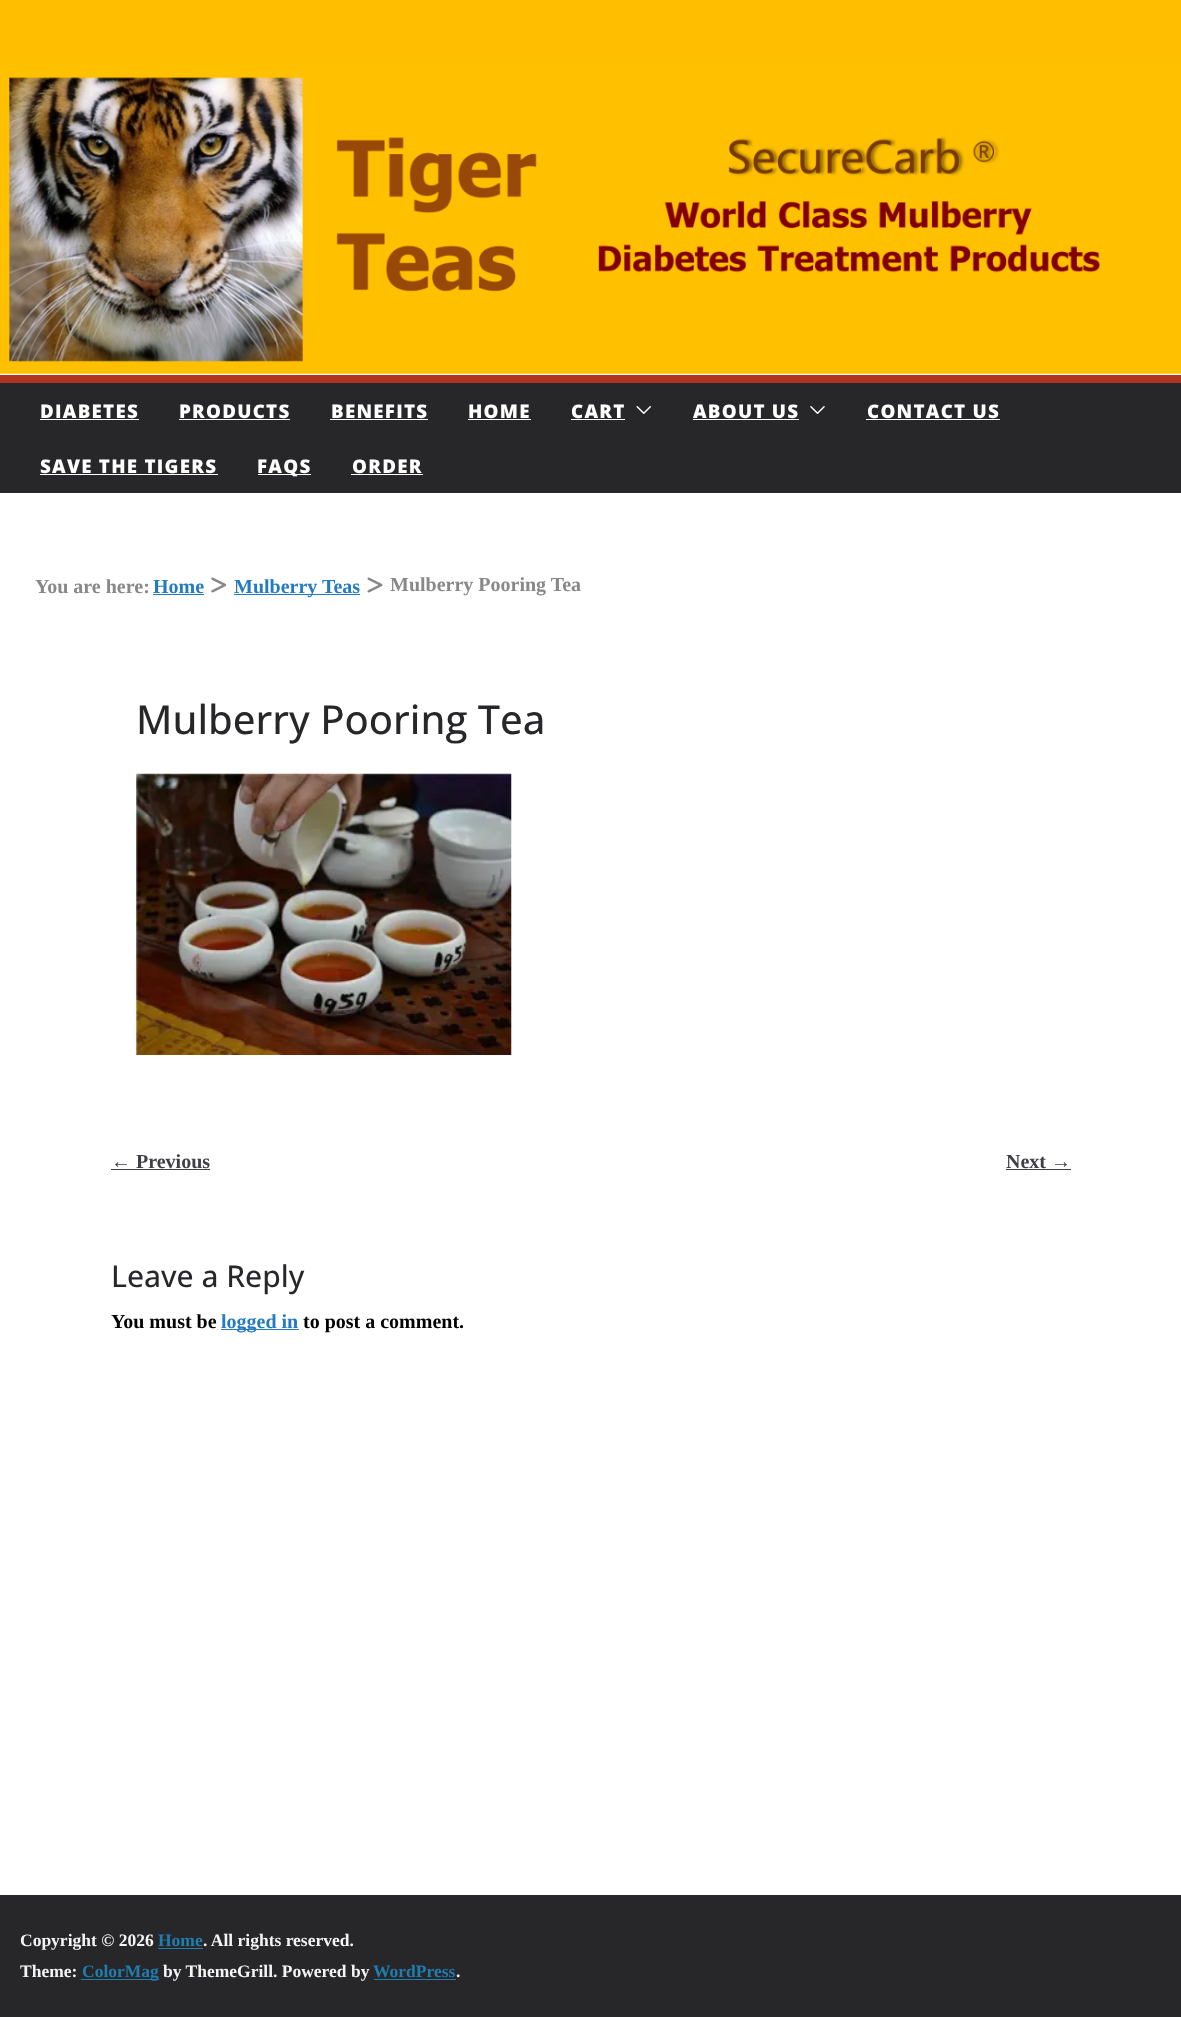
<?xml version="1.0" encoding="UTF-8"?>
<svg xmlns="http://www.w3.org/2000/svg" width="1181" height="2017">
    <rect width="100%" height="100%" fill="#FFFFFF"/>
    <rect x="0" y="0" width="1181" height="60" fill="#FFBF00"/>
    <image x="0" y="60" width="1181" height="314" href="img_01.png"/>
    <rect x="0" y="383" width="1181" height="110" fill="#27272A"/>
    <rect x="0" y="375" width="1181" height="8" fill="#B03420"/>
    <text x="40" y="418" font-family="Open Sans" font-size="18.75" font-weight="800" letter-spacing="1.25" fill="#FFFFFF">DIABETES</text>
    <rect x="40" y="419" width="99" height="1" fill="#FFFFFF"/>
    <text x="179" y="418" font-family="Open Sans" font-size="18.75" font-weight="800" letter-spacing="1.25" fill="#FFFFFF">PRODUCTS</text>
    <rect x="179" y="419" width="111" height="1" fill="#FFFFFF"/>
    <text x="331" y="418" font-family="Open Sans" font-size="18.75" font-weight="800" letter-spacing="1.25" fill="#FFFFFF">BENEFITS</text>
    <rect x="330" y="419" width="98" height="1" fill="#FFFFFF"/>
    <text x="468" y="418" font-family="Open Sans" font-size="18.75" font-weight="800" letter-spacing="1.25" fill="#FFFFFF">HOME</text>
    <rect x="468" y="419" width="63" height="1" fill="#FFFFFF"/>
    <text x="571" y="418" font-family="Open Sans" font-size="18.75" font-weight="800" letter-spacing="1.25" fill="#FFFFFF">CART</text>
    <rect x="571" y="419" width="54" height="1" fill="#FFFFFF"/>
    <image x="636" y="406" width="15" height="8" href="img_02.png"/>
    <text x="693" y="418" font-family="Open Sans" font-size="18.75" font-weight="800" letter-spacing="1.25" fill="#FFFFFF">ABOUT US</text>
    <rect x="693" y="419" width="106" height="1" fill="#FFFFFF"/>
    <image x="810" y="406" width="15" height="8" href="img_03.png"/>
    <text x="867" y="418" font-family="Open Sans" font-size="18.75" font-weight="800" letter-spacing="1.25" fill="#FFFFFF">CONTACT US</text>
    <rect x="866" y="419" width="134" height="1" fill="#FFFFFF"/>
    <text x="40" y="473" font-family="Open Sans" font-size="18.75" font-weight="800" letter-spacing="1.25" fill="#FFFFFF">SAVE THE TIGERS</text>
    <rect x="40" y="474" width="178" height="1" fill="#FFFFFF"/>
    <rect x="258" y="474" width="53" height="1" fill="#FFFFFF"/>
    <text x="257" y="473" font-family="Open Sans" font-size="18.75" font-weight="800" letter-spacing="1.25" fill="#FFFFFF">FAQS</text>
    <text x="352" y="473" font-family="Open Sans" font-size="18.75" font-weight="800" letter-spacing="1.25" fill="#FFFFFF">ORDER</text>
    <rect x="351" y="474" width="72" height="1" fill="#FFFFFF"/>
    <text x="35" y="593" font-family="Liberation Serif" font-size="20" font-weight="700" fill="#888888">You are here:</text>
    <text x="153" y="593" font-family="Liberation Serif" font-size="20" font-weight="700" fill="#257BC1">Home</text>
    <rect x="153" y="594" width="51" height="1" fill="#257BC1"/>
    <image x="211" y="577" width="16" height="16" href="img_04.png"/>
    <rect x="234" y="594" width="126" height="1" fill="#257BC1"/>
    <text x="234" y="593" font-family="Liberation Serif" font-size="20" font-weight="700" fill="#257BC1">Mulberry Teas</text>
    <image x="367" y="577" width="16" height="16" href="img_05.png"/>
    <text x="390" y="591" font-family="Liberation Serif" font-size="20" font-weight="700" fill="#888888">Mulberry Pooring Tea</text>
    <text x="136" y="734" font-family="Open Sans" font-size="40" font-weight="500" fill="#27272A">Mulberry Pooring Tea</text>
    <image x="136" y="773" width="376" height="282" href="img_06.png"/>
    <text x="111" y="1168" font-family="Liberation Serif" font-size="20" font-weight="700" fill="#3F3F46">← Previous</text>
    <rect x="111" y="1169" width="99" height="1" fill="#3F3F46"/>
    <text x="1006" y="1168" font-family="Liberation Serif" font-size="20" font-weight="700" fill="#3F3F46">Next →</text>
    <rect x="1006" y="1169" width="65" height="1" fill="#3F3F46"/>
    <text x="111" y="1287" font-family="Open Sans" font-size="30" font-weight="500" fill="#27272A">Leave a Reply</text>
    <text x="111" y="1328" font-family="Liberation Serif" font-size="20" font-weight="700" fill="#000000">You must be</text>
    <rect x="221" y="1329" width="78" height="1" fill="#257BC1"/>
    <text x="221" y="1328" font-family="Liberation Serif" font-size="20" font-weight="700" fill="#257BC1">logged in</text>
    <text x="303" y="1328" font-family="Liberation Serif" font-size="20" font-weight="700" fill="#000000">to post a comment.</text>
    <rect x="0" y="1895" width="1181" height="122" fill="#27272A"/>
    <text x="20" y="1946" font-family="Liberation Serif" font-size="17.5" font-weight="700" fill="#F4F4F5">Copyright © 2026</text>
    <text x="158" y="1946" font-family="Liberation Serif" font-size="17.5" font-weight="700" fill="#207DAF">Home</text>
    <rect x="158" y="1948" width="45" height="1" fill="#207DAF"/>
    <text x="203" y="1946" font-family="Liberation Serif" font-size="17.5" font-weight="700" fill="#F4F4F5">. All rights reserved.</text>
    <text x="20" y="1977" font-family="Liberation Serif" font-size="17.5" font-weight="700" fill="#F4F4F5">Theme:</text>
    <rect x="81" y="1979" width="78" height="1" fill="#207DAF"/>
    <text x="82" y="1977" font-family="Liberation Serif" font-size="17.5" font-weight="700" fill="#207DAF">ColorMag</text>
    <text x="163" y="1977" font-family="Liberation Serif" font-size="17.5" font-weight="700" fill="#F4F4F5">by ThemeGrill. Powered by</text>
    <text x="373" y="1977" font-family="Liberation Serif" font-size="17.5" font-weight="700" fill="#207DAF">WordPress</text>
    <rect x="374" y="1979" width="82" height="1" fill="#207DAF"/>
    <text x="456" y="1977" font-family="Liberation Serif" font-size="17.5" font-weight="700" fill="#F4F4F5">.</text>
</svg>
